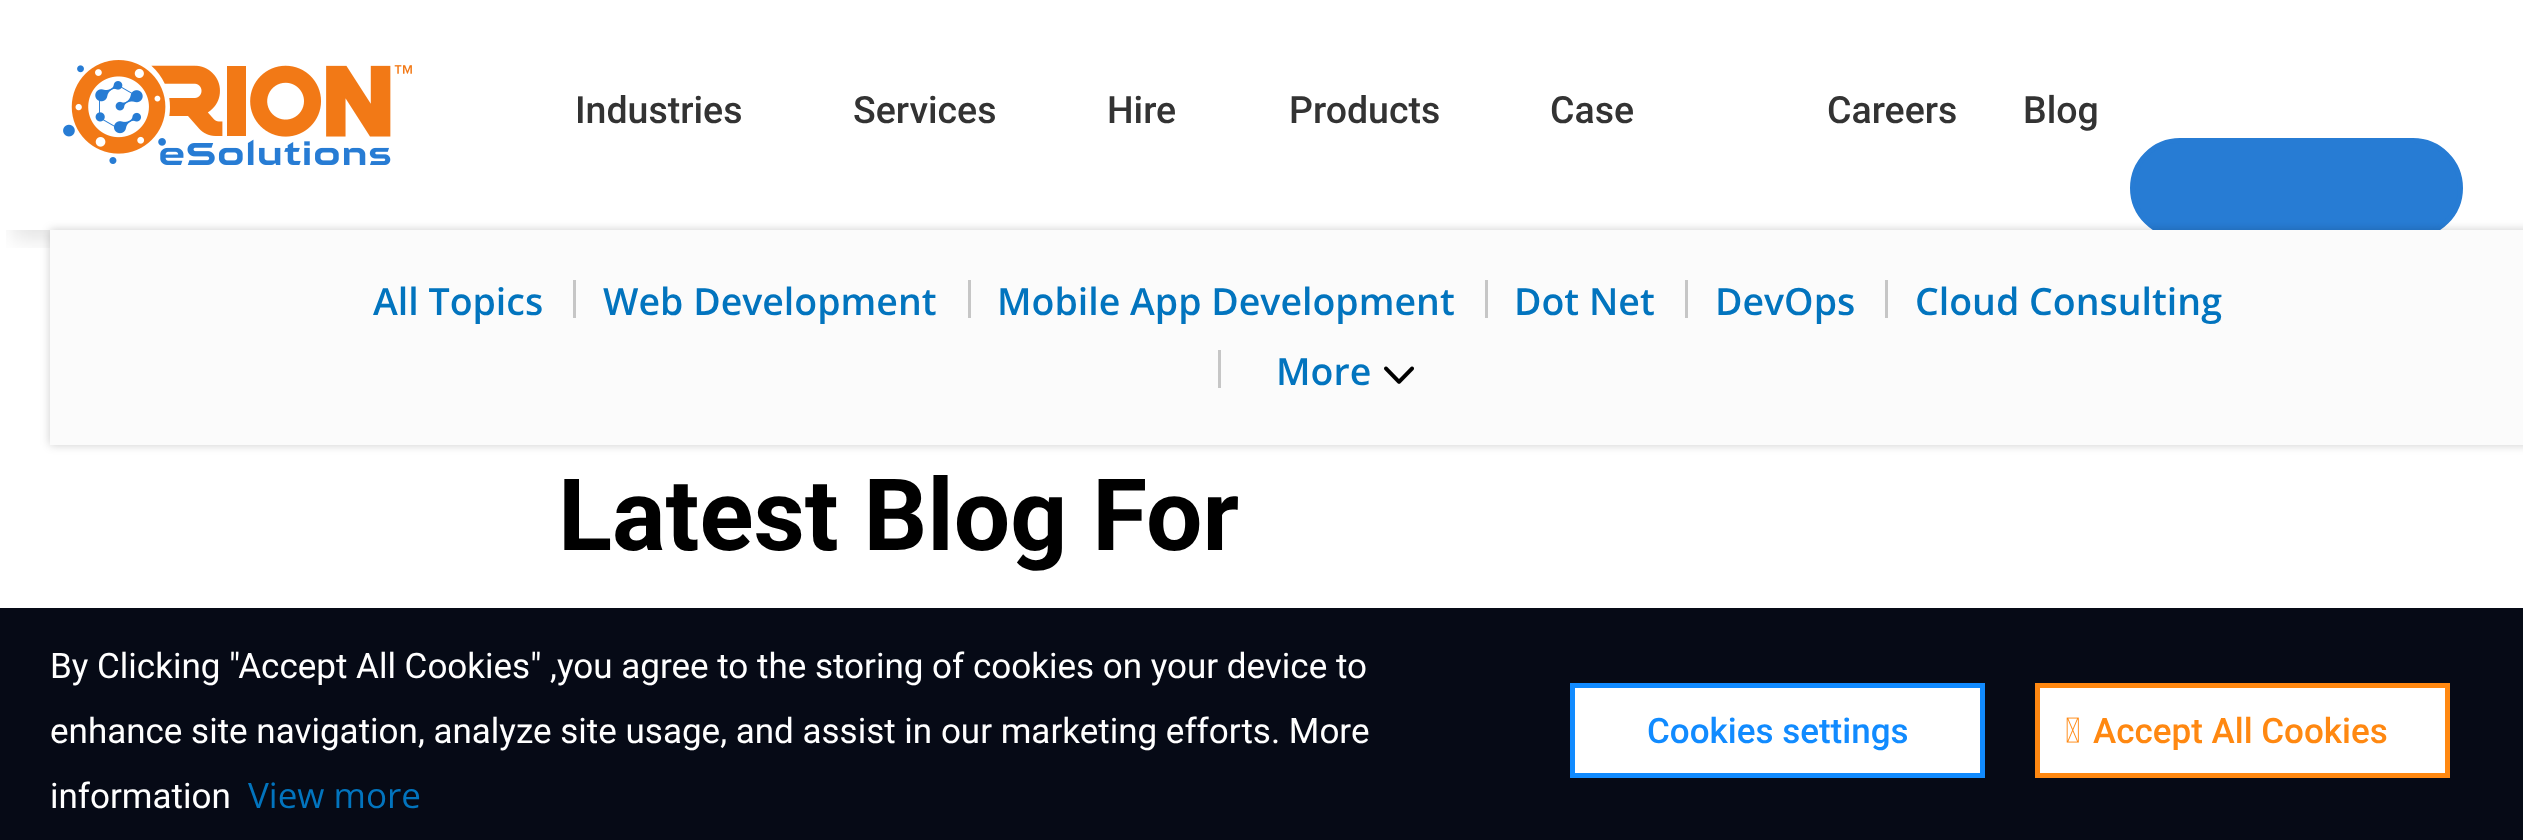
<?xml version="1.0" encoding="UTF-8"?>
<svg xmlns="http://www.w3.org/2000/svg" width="2523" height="840">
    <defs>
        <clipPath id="clip1"><rect x="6" y="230" width="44" height="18"/></clipPath>
        <filter id="blur1" x="-50%" y="-200%" width="200%" height="500%"><feGaussianBlur stdDeviation="10"/></filter>
        <filter id="blur2" x="-50%" y="-200%" width="200%" height="500%"><feGaussianBlur stdDeviation="5"/></filter>
    </defs>
    <rect width="100%" height="100%" fill="#FFFFFF"/>
    <g clip-path="url(#clip1)">
        <rect x="13" y="10" width="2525" height="230" fill="#000000" fill-opacity="0.1" filter="url(#blur1)"/>
    </g>
    <image x="63" y="60" width="349" height="105" href="img_01.png"/>
    <text x="575" y="123" font-family="Roboto" font-size="37.5" font-weight="500" fill="#333333">Industries</text>
    <text x="853" y="123" font-family="Roboto" font-size="37.5" font-weight="500" fill="#333333">Services</text>
    <text x="1107" y="123" font-family="Roboto" font-size="37.5" font-weight="500" fill="#333333">Hire</text>
    <text x="1289" y="123" font-family="Roboto" font-size="37.5" font-weight="500" fill="#333333">Products</text>
    <text x="1550" y="123" font-family="Roboto" font-size="37.5" font-weight="500" fill="#333333">Case</text>
    <text x="1827" y="123" font-family="Roboto" font-size="37.5" font-weight="500" fill="#333333">Careers</text>
    <text x="2023" y="123" font-family="Roboto" font-size="37.5" font-weight="500" fill="#333333">Blog</text>
    <rect x="2132.5" y="140.5" width="328" height="95" rx="47.5" fill="#277CD4" stroke="#277CD4" stroke-width="5"/>
    <rect x="50" y="230" width="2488" height="215" fill="#000000" fill-opacity="0.2" filter="url(#blur2)"/>
    <rect x="50" y="230" width="2473" height="215" fill="#FBFBFB"/>
    <text x="373" y="315" font-family="Open Sans" font-size="37.5" font-weight="600" fill="#0274BE">All Topics</text>
    <rect x="573" y="280" width="3" height="38" fill="#C6C6C6"/>
    <text x="603" y="315" font-family="Open Sans" font-size="37.5" font-weight="600" fill="#0274BE">Web Development</text>
    <rect x="968" y="280" width="3" height="38" fill="#C6C6C6"/>
    <text x="997" y="315" font-family="Open Sans" font-size="37.5" font-weight="600" fill="#0274BE">Mobile App Development</text>
    <rect x="1485" y="280" width="3" height="38" fill="#C6C6C6"/>
    <text x="1514" y="315" font-family="Open Sans" font-size="37.5" font-weight="600" fill="#0274BE">Dot Net</text>
    <rect x="1685" y="280" width="3" height="38" fill="#C6C6C6"/>
    <text x="1715" y="315" font-family="Open Sans" font-size="37.5" font-weight="600" fill="#0274BE">DevOps</text>
    <rect x="1885" y="280" width="3" height="38" fill="#C6C6C6"/>
    <text x="1915" y="315" font-family="Open Sans" font-size="37.5" font-weight="600" fill="#0274BE">Cloud Consulting</text>
    <rect x="1218" y="350" width="3" height="38" fill="#C6C6C6"/>
    <text x="1276" y="385" font-family="Open Sans" font-size="37.5" font-weight="600" fill="#0274BE">More</text>
    <image x="1384" y="366" width="30" height="18" href="img_02.png"/>
    <text x="558" y="550" font-family="Roboto" font-size="100" font-weight="700" fill="#000000">Latest Blog For</text>
    <rect x="0" y="608" width="2523" height="232" fill="#060A16"/>
    <text font-family="Roboto" font-size="35" fill="#FFFFFF">
        <tspan x="50" y="678">By Clicking "Accept All Cookies" ,you agree to the storing of cookies on your device to</tspan>
        <tspan x="50" y="743">enhance site navigation, analyze site usage, and assist in our marketing efforts. More</tspan>
        <tspan x="50" y="808">information</tspan>
    </text>
    <text x="248" y="808" font-family="Open Sans" font-size="35" fill="#0274BE">View more</text>
    <rect x="1572.5" y="685.5" width="410" height="90" fill="#FFFFFF" stroke="#118BFF" stroke-width="5"/>
    <text x="1647" y="743" font-family="Roboto" font-size="35" font-weight="500" fill="#118BFF">Cookies settings</text>
    <rect x="2037.5" y="685.5" width="410" height="90" fill="#FFFFFF" stroke="#FF8811" stroke-width="5"/>
    <image x="2066" y="717" width="13" height="26" href="img_03.png"/>
    <text x="2093" y="743" font-family="Roboto" font-size="35" font-weight="500" fill="#FF8811">Accept All Cookies</text>
</svg>
